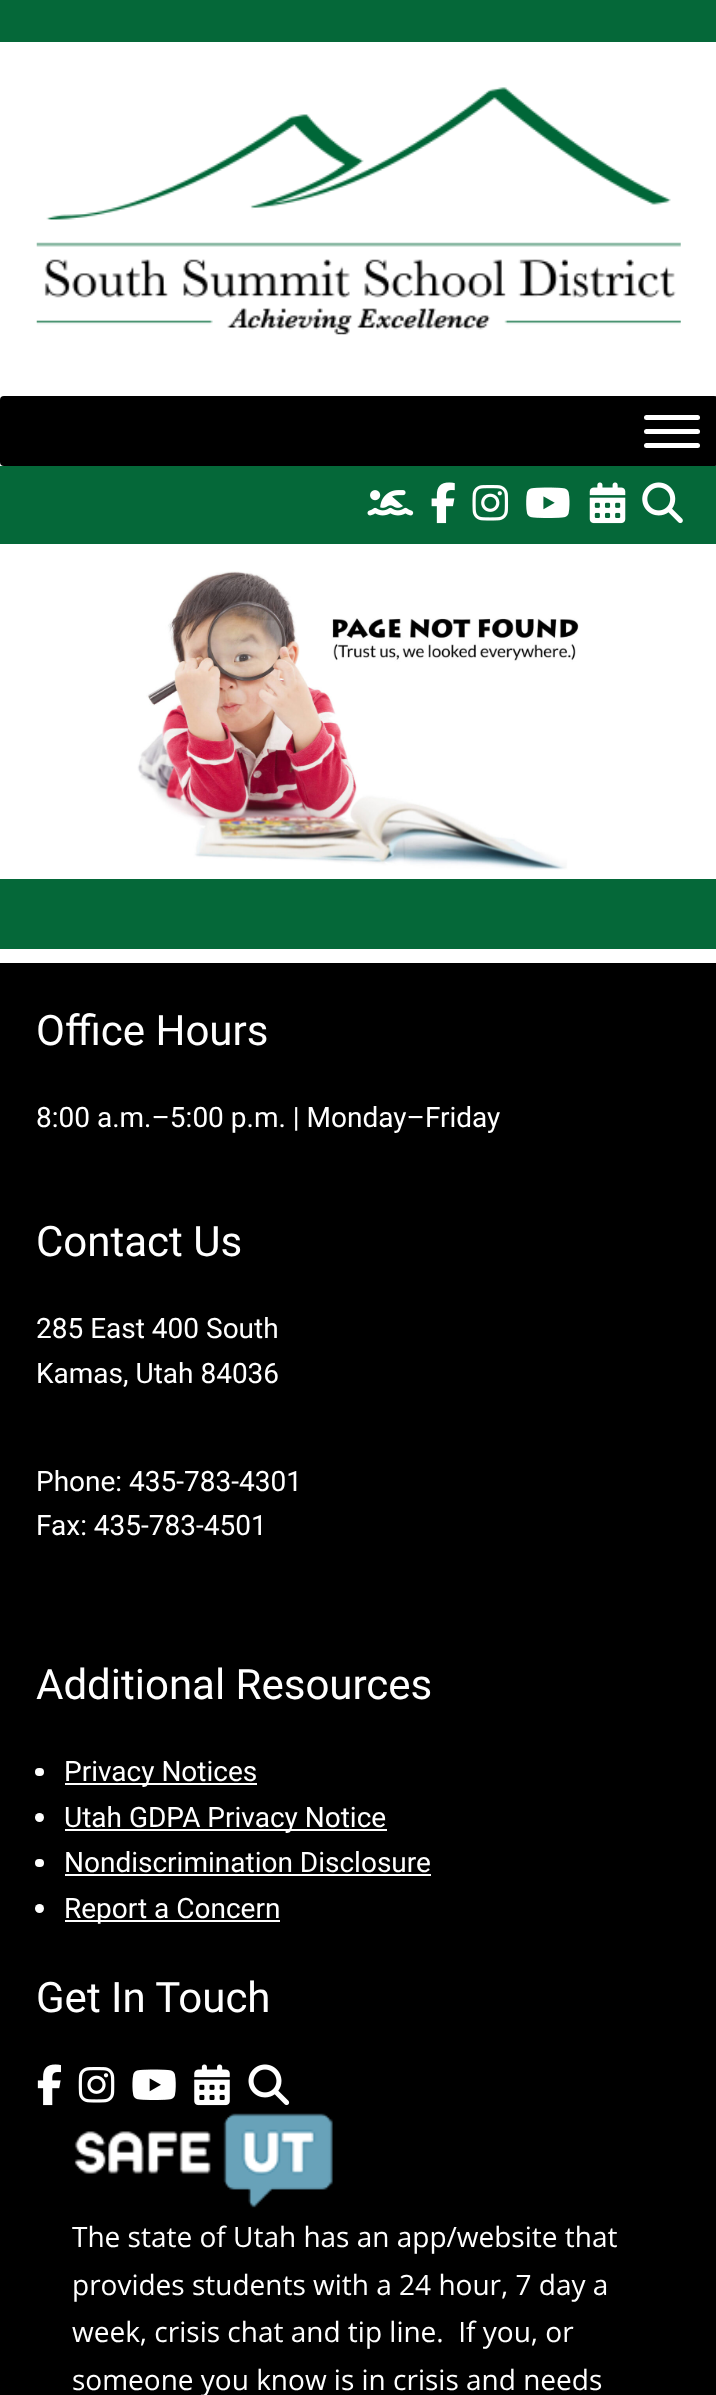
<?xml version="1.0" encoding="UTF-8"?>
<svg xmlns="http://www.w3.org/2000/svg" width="716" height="2395">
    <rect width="100%" height="100%" fill="#FFFFFF"/>
    <rect x="0" y="0" width="716" height="42" fill="#056839"/>
    <image x="36" y="87" width="645" height="248" href="img_01.png"/>
    <rect x="0" y="396" width="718" height="70" rx="4" fill="#000000"/>
    <rect x="644" y="415" width="56" height="5" rx="2.5" fill="#FFFFFF"/>
    <rect x="644" y="429" width="56" height="5" rx="2.5" fill="#FFFFFF"/>
    <rect x="644" y="443" width="56" height="5" rx="2.5" fill="#FFFFFF"/>
    <rect x="0" y="466" width="716" height="78" fill="#056839"/>
    <image x="367" y="490" width="47" height="26" href="img_02.png"/>
    <image x="431" y="482" width="24" height="42" href="img_03.png"/>
    <image x="472" y="485" width="37" height="36" href="img_04.png"/>
    <image x="526" y="487" width="44" height="31" href="img_05.png"/>
    <image x="589" y="482" width="37" height="42" href="img_06.png"/>
    <image x="642" y="482" width="41" height="42" href="img_07.png"/>
    <image x="137" y="571" width="442" height="299" href="img_08.png"/>
    <rect x="0" y="963" width="716" height="1432" fill="#000000"/>
    <rect x="0" y="879" width="716" height="70" fill="#056839"/>
    <text x="36" y="1045" font-family="Roboto" font-size="42" fill="#FFFFFF">Office Hours</text>
    <text x="36" y="1127" font-family="Roboto" font-size="28" fill="#FFFFFF">8:00 a.m.–5:00 p.m. | Monday–Friday</text>
    <text x="36" y="1256" font-family="Roboto" font-size="42" fill="#FFFFFF">Contact Us</text>
    <text font-family="Roboto" font-size="28" fill="#FFFFFF">
        <tspan x="36" y="1338">285 East 400 South</tspan>
        <tspan x="36" y="1383">Kamas, Utah 84036</tspan>
    </text>
    <text font-family="Roboto" font-size="28" fill="#FFFFFF">
        <tspan x="36" y="1491">Phone: 435-783-4301</tspan>
        <tspan x="36" y="1535">Fax: 435-783-4501</tspan>
    </text>
    <text x="36" y="1699" font-family="Roboto" font-size="42" fill="#FFFFFF">Additional Resources</text>
    <rect x="35" y="1768" width="9" height="8" rx="4" fill="#FFFFFF"/>
    <rect x="65" y="1783" width="192" height="2" fill="#FFFFFF"/>
    <text x="64" y="1781" font-family="Roboto" font-size="28" fill="#FFFFFF">Privacy Notices</text>
    <circle cx="39.5" cy="1817.5" r="4.5" fill="#FFFFFF"/>
    <rect x="65" y="1829" width="322" height="2" fill="#FFFFFF"/>
    <text x="64" y="1827" font-family="Roboto" font-size="28" fill="#FFFFFF">Utah GDPA Privacy Notice</text>
    <rect x="35" y="1859" width="9" height="8" rx="4" fill="#FFFFFF"/>
    <text x="64" y="1872" font-family="Roboto" font-size="28" fill="#FFFFFF">Nondiscrimination Disclosure</text>
    <rect x="65" y="1874" width="366" height="2" fill="#FFFFFF"/>
    <circle cx="39.5" cy="1908.5" r="4.5" fill="#FFFFFF"/>
    <rect x="65" y="1920" width="215" height="2" fill="#FFFFFF"/>
    <text x="64" y="1918" font-family="Roboto" font-size="28" fill="#FFFFFF">Report a Concern</text>
    <text x="36" y="2012" font-family="Roboto" font-size="42" fill="#FFFFFF">Get In Touch</text>
    <image x="37" y="2064" width="24" height="42" href="img_09.png"/>
    <image x="78" y="2067" width="37" height="36" href="img_10.png"/>
    <image x="132" y="2069" width="44" height="31" href="img_11.png"/>
    <image x="194" y="2064" width="36" height="42" href="img_12.png"/>
    <image x="248" y="2064" width="42" height="42" href="img_13.png"/>
    <image x="74" y="2113" width="259" height="95" href="img_14.png"/>
    <text font-family="Open Sans" font-size="28" fill="#FFFFFF" xml:space="preserve"><tspan x="72" y="2247">The state of Utah has an app/website that</tspan><tspan x="72" y="2295">provides students with a 24 hour, 7 day a</tspan><tspan x="72" y="2342">week, crisis chat and tip line.  If you, or</tspan><tspan x="72" y="2390">someone you know is in crisis and needs</tspan></text>
</svg>
